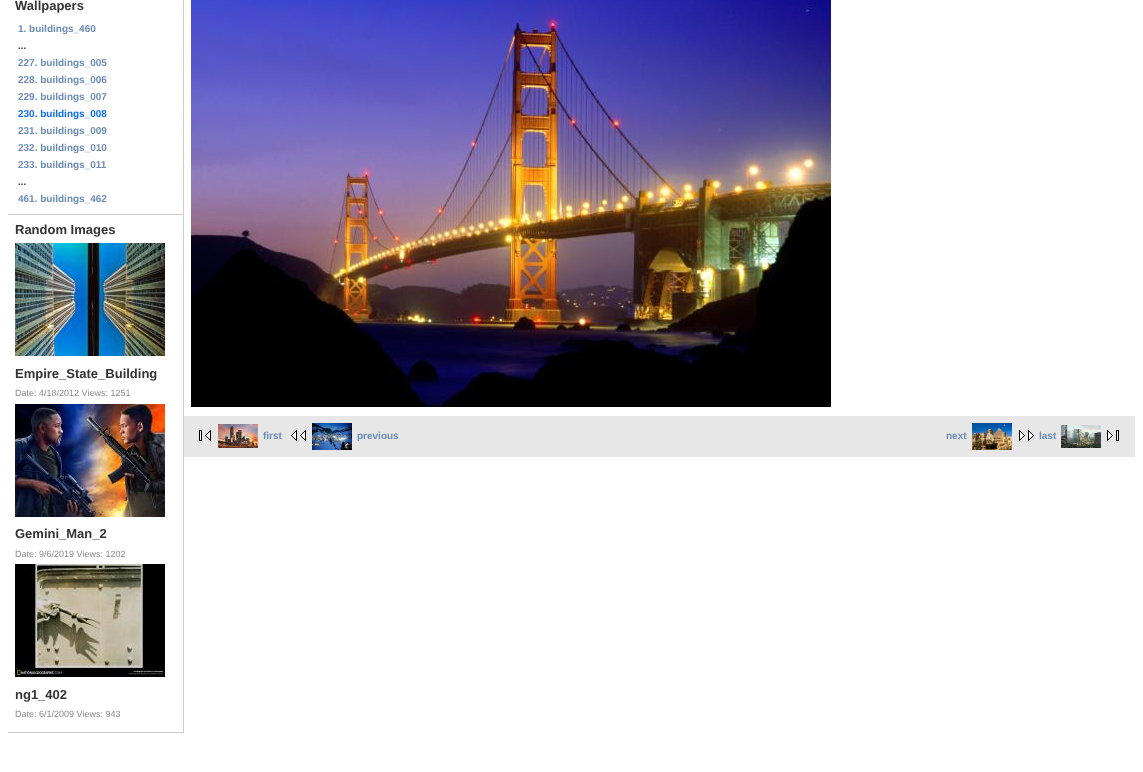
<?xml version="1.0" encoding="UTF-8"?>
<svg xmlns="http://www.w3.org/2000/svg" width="1143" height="772">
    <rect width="100%" height="100%" fill="#FFFFFF"/>
    <rect x="183" y="0" width="1" height="733" fill="#CCCCCC"/>
    <rect x="8" y="214" width="175" height="1" fill="#CCCCCC"/>
    <text x="15" y="10" font-family="Liberation Sans" font-size="13" font-weight="700" fill="#333333">Wallpapers</text>
    <text x="18" y="32" font-family="Liberation Sans" font-size="10" font-weight="700" fill="#6B8CB7">1. buildings_460</text>
    <text x="18" y="49" font-family="Liberation Sans" font-size="10" font-weight="700" fill="#333333">...</text>
    <text font-family="Liberation Sans" font-size="10" font-weight="700" fill="#6B8CB7">
        <tspan x="18" y="66">227. buildings_005</tspan>
        <tspan x="18" y="83">228. buildings_006</tspan>
        <tspan x="18" y="100">229. buildings_007</tspan>
    </text>
    <text x="18" y="117" font-family="Liberation Sans" font-size="10" font-weight="700" fill="#0B6CFF">230. buildings_008</text>
    <text font-family="Liberation Sans" font-size="10" font-weight="700" fill="#6B8CB7">
        <tspan x="18" y="134">231. buildings_009</tspan>
        <tspan x="18" y="151">232. buildings_010</tspan>
        <tspan x="18" y="168">233. buildings_011</tspan>
    </text>
    <text x="18" y="185" font-family="Liberation Sans" font-size="10" font-weight="700" fill="#333333">...</text>
    <text x="18" y="202" font-family="Liberation Sans" font-size="10" font-weight="700" fill="#6B8CB7">461. buildings_462</text>
    <rect x="8" y="732" width="175" height="1" fill="#CCCCCC"/>
    <text x="15" y="234" font-family="Liberation Sans" font-size="13" font-weight="700" fill="#333333">Random Images</text>
    <image x="15" y="243" width="150" height="113" href="img_01.png"/>
    <text x="15" y="378" font-family="Liberation Sans" font-size="13" font-weight="700" fill="#333333">Empire_State_Building</text>
    <text x="15" y="396" font-family="Liberation Sans" font-size="9" fill="#888888">Date: 4/18/2012 Views: 1251</text>
    <image x="15" y="404" width="150" height="113" href="img_02.png"/>
    <text x="15" y="538" font-family="Liberation Sans" font-size="13" font-weight="700" fill="#333333">Gemini_Man_2</text>
    <text x="15" y="557" font-family="Liberation Sans" font-size="9" fill="#888888">Date: 9/6/2019 Views: 1202</text>
    <image x="15" y="564" width="150" height="113" href="img_03.png"/>
    <text x="15" y="699" font-family="Liberation Sans" font-size="13" font-weight="700" fill="#333333">ng1_402</text>
    <text x="15" y="717" font-family="Liberation Sans" font-size="9" fill="#888888">Date: 6/1/2009 Views: 943</text>
    <image x="191" y="0" width="640" height="407" href="img_04.png"/>
    <rect x="184" y="416" width="951" height="41" fill="#E7E7E7"/>
    <image x="199" y="430" width="12" height="11" href="img_05.png"/>
    <image x="218" y="424" width="40" height="24" href="img_06.png"/>
    <text x="263" y="439" font-family="Liberation Sans" font-size="10" font-weight="700" fill="#6B8CB7">first</text>
    <image x="291" y="430" width="15" height="11" href="img_07.png"/>
    <image x="312" y="423" width="40" height="27" href="img_08.png"/>
    <text x="357" y="439" font-family="Liberation Sans" font-size="10" font-weight="700" fill="#6B8CB7">previous</text>
    <text x="946" y="439" font-family="Liberation Sans" font-size="10" font-weight="700" fill="#6B8CB7">next</text>
    <image x="972" y="423" width="40" height="27" href="img_09.png"/>
    <image x="1019" y="430" width="15" height="11" href="img_10.png"/>
    <text x="1039" y="439" font-family="Liberation Sans" font-size="10" font-weight="700" fill="#6B8CB7">last</text>
    <image x="1061" y="425" width="40" height="23" href="img_11.png"/>
    <image x="1107" y="430" width="12" height="11" href="img_12.png"/>
</svg>
